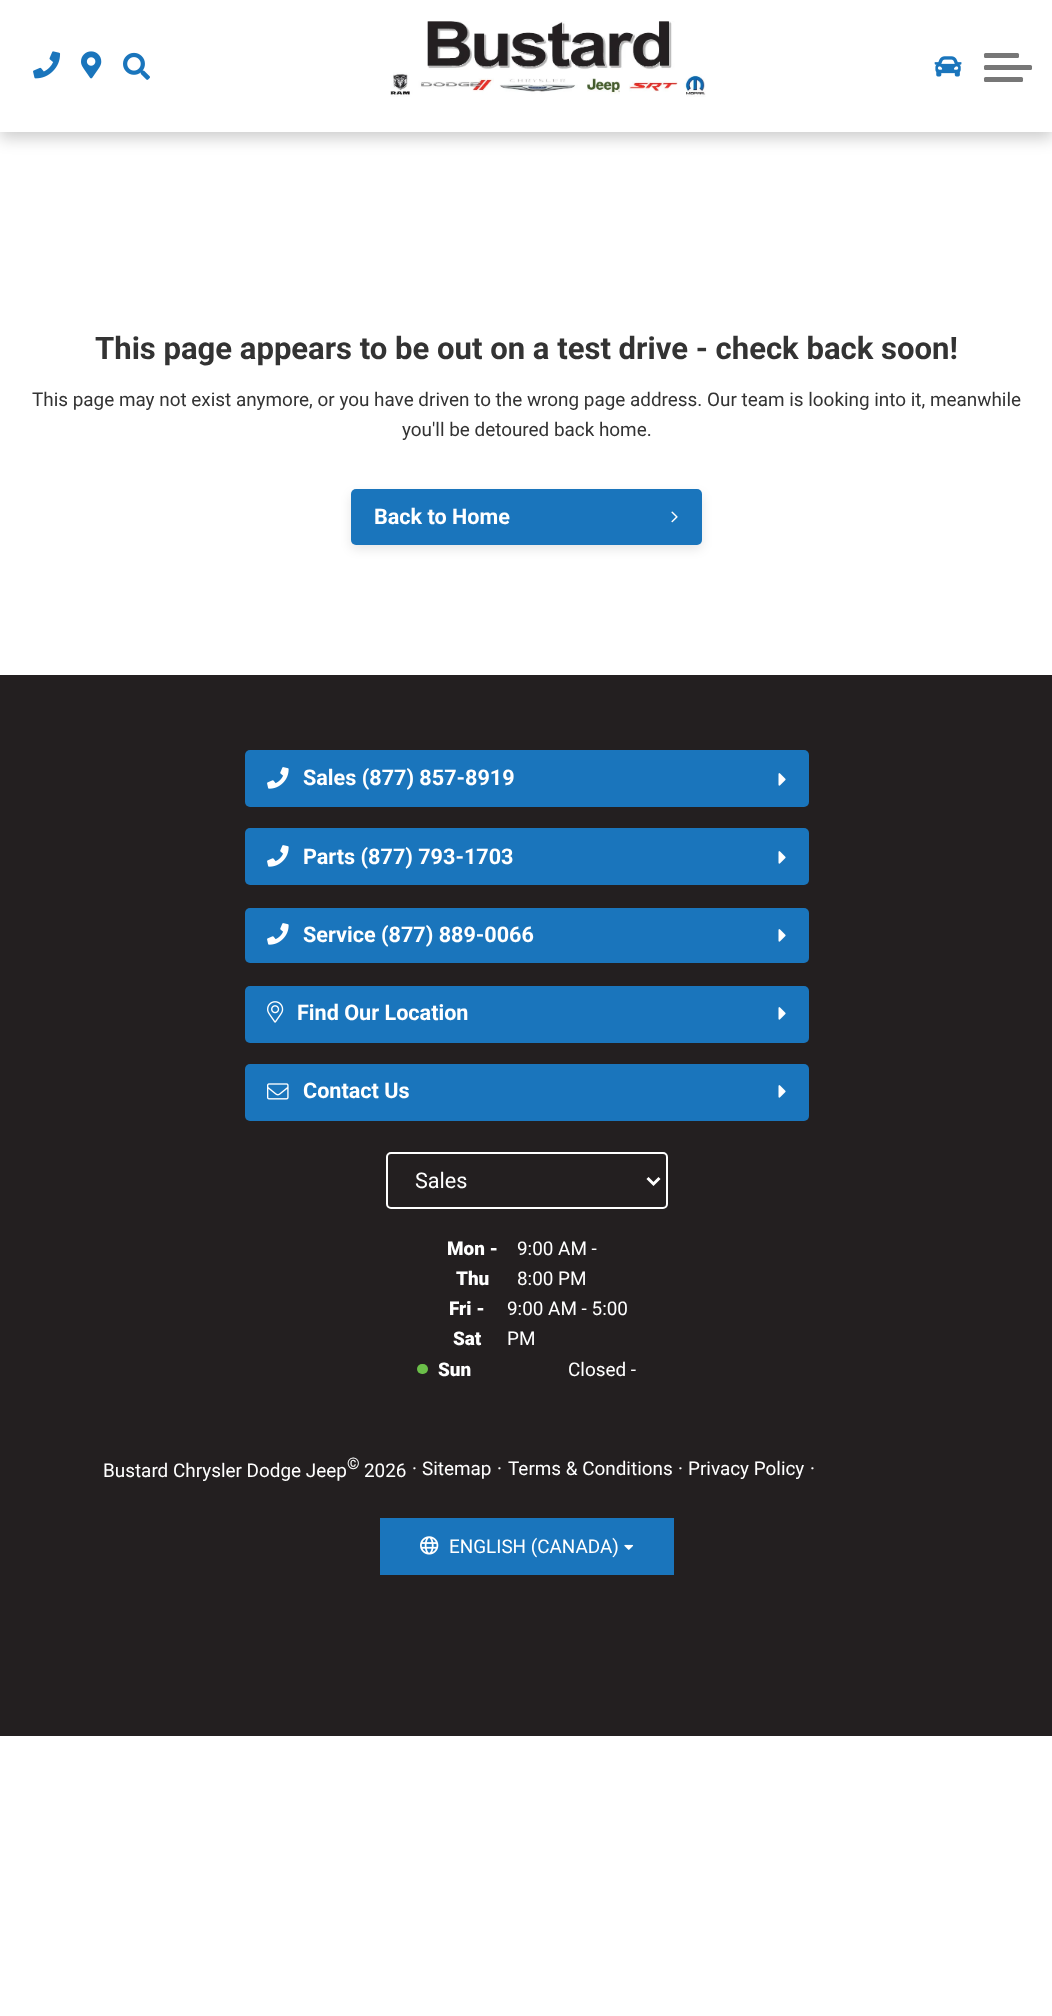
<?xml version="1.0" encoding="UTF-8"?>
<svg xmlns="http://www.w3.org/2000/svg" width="1052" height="2016">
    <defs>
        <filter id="blur1" x="-50%" y="-200%" width="200%" height="500%"><feGaussianBlur stdDeviation="8"/></filter>
        <filter id="blur2" x="-50%" y="-200%" width="200%" height="500%"><feGaussianBlur stdDeviation="5.5"/></filter>
    </defs>
    <rect width="100%" height="100%" fill="#FFFFFF"/>
    <rect x="0" y="6" width="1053" height="132" fill="#000000" fill-opacity="0.2" filter="url(#blur1)"/>
    <rect x="0" y="0" width="1052" height="132" fill="#FFFFFF"/>
    <image x="33" y="51" width="28" height="28" href="img_01.png"/>
    <image x="81" y="51" width="21" height="28" href="img_02.png"/>
    <image x="123" y="52" width="27" height="28" href="img_03.png"/>
    <image x="390" y="21" width="316" height="76" href="img_04.png"/>
    <image x="934" y="56" width="28" height="21" href="img_05.png"/>
    <rect x="984" y="65" width="48" height="5" rx="1.5" fill="#777777"/>
    <rect x="984" y="53" width="35" height="5" rx="1.5" fill="#777777"/>
    <rect x="984" y="77" width="39" height="5" rx="1.5" fill="#777777"/>
    <text x="95" y="359" font-family="Roboto" font-size="31.05" font-weight="700" fill="#333333">This page appears to be out on a test drive - check back soon!</text>
    <text x="32" y="406" font-family="Roboto" font-size="18.9" fill="#333333">This page may not exist anymore, or you have driven to the wrong page address. Our team is looking into it, meanwhile</text>
    <text x="402" y="436" font-family="Roboto" font-size="18.9" fill="#333333">you'll be detoured back home.</text>
    <rect x="351" y="494" width="351" height="55" rx="5" fill="#000000" fill-opacity="0.1" filter="url(#blur2)"/>
    <rect x="351" y="489" width="351" height="56" rx="5" fill="#1A75BC"/>
    <text x="374" y="524" font-family="Roboto" font-size="21.6" font-weight="700" fill="#FFFFFF">Back to Home</text>
    <image x="671" y="511" width="7" height="12" href="img_06.png"/>
    <rect x="0" y="675" width="1052" height="1061" fill="#231F20"/>
    <rect x="245" y="750" width="564" height="57" rx="5" fill="#1A75BC"/>
    <image x="267" y="767" width="22" height="22" href="img_07.png"/>
    <text x="303" y="785" font-family="Roboto" font-size="21.6" font-weight="700" fill="#FFFFFF">Sales (877) 857-8919</text>
    <image x="778" y="773" width="8" height="13" href="img_08.png"/>
    <rect x="245" y="828" width="564" height="57" rx="5" fill="#1A75BC"/>
    <image x="267" y="845" width="22" height="22" href="img_07.png"/>
    <text x="303" y="864" font-family="Roboto" font-size="21.6" font-weight="700" fill="#FFFFFF">Parts (877) 793-1703</text>
    <image x="778" y="851" width="8" height="13" href="img_08.png"/>
    <rect x="245" y="908" width="564" height="55" rx="5" fill="#1A75BC"/>
    <image x="267" y="923" width="22" height="22" href="img_07.png"/>
    <text x="303" y="942" font-family="Roboto" font-size="21.6" font-weight="700" fill="#FFFFFF">Service (877) 889-0066</text>
    <image x="778" y="929" width="8" height="13" href="img_08.png"/>
    <rect x="245" y="986" width="564" height="57" rx="5" fill="#1A75BC"/>
    <image x="267" y="1001" width="17" height="22" href="img_09.png"/>
    <text x="297" y="1020" font-family="Roboto" font-size="21.6" font-weight="700" fill="#FFFFFF">Find Our Location</text>
    <image x="778" y="1007" width="8" height="13" href="img_08.png"/>
    <rect x="245" y="1064" width="564" height="57" rx="5" fill="#1A75BC"/>
    <image x="267" y="1083" width="22" height="17" href="img_10.png"/>
    <text x="303" y="1098" font-family="Roboto" font-size="21.6" font-weight="700" fill="#FFFFFF">Contact Us</text>
    <image x="778" y="1085" width="8" height="13" href="img_08.png"/>
    <rect x="387" y="1153" width="280" height="55" rx="4" fill="none" stroke="#FFFFFF" stroke-width="2"/>
    <path d="M 647.5 1178 L 653.5 1184 L 659.5 1178" fill="none" stroke="#FFFFFF" stroke-width="3"/>
    <text x="415" y="1188" font-family="Roboto" font-size="21.6" fill="#FFFFFF">Sales</text>
    <text x="447" y="1255" font-family="Roboto" font-size="18.9" font-weight="900" fill="#FFFFFF">Mon -</text>
    <text x="456" y="1285" font-family="Roboto" font-size="18.9" font-weight="900" fill="#FFFFFF">Thu</text>
    <text font-family="Roboto" font-size="18.9" fill="#FFFFFF">
        <tspan x="517" y="1255">9:00 AM -</tspan>
        <tspan x="517" y="1285">8:00 PM</tspan>
    </text>
    <text x="449" y="1315" font-family="Roboto" font-size="18.9" font-weight="900" fill="#FFFFFF">Fri -</text>
    <text x="453" y="1345" font-family="Roboto" font-size="18.9" font-weight="900" fill="#FFFFFF">Sat</text>
    <text font-family="Roboto" font-size="18.9" fill="#FFFFFF">
        <tspan x="507" y="1315">9:00 AM - 5:00</tspan>
        <tspan x="507" y="1345">PM</tspan>
    </text>
    <rect x="417" y="1364" width="11" height="10" rx="5" fill="#6BBF49"/>
    <text x="438" y="1376" font-family="Roboto" font-size="18.9" font-weight="900" fill="#FFFFFF">Sun</text>
    <text x="568" y="1376" font-family="Roboto" font-size="18.9" fill="#FFFFFF">Closed -</text>
    <text x="103" y="1477" font-family="Roboto" font-size="18.9" fill="#FFFFFF">Bustard Chrysler Dodge Jeep</text>
    <text x="347" y="1469" font-family="Roboto" font-size="16" fill="#FFFFFF">©</text>
    <text x="364" y="1477" font-family="Roboto" font-size="18.9" fill="#FFFFFF">2026</text>
    <text x="412" y="1475" font-family="Roboto" font-size="18.9" fill="#FFFFFF">·</text>
    <text x="422" y="1475" font-family="Roboto" font-size="18.9" fill="#FFFFFF">Sitemap</text>
    <text x="497" y="1475" font-family="Roboto" font-size="18.9" fill="#FFFFFF">·</text>
    <text x="508" y="1475" font-family="Roboto" font-size="18.9" fill="#FFFFFF">Terms &amp; Conditions</text>
    <text x="678" y="1475" font-family="Roboto" font-size="18.9" fill="#FFFFFF">·</text>
    <text x="688" y="1475" font-family="Roboto" font-size="18.9" fill="#FFFFFF">Privacy Policy</text>
    <text x="810" y="1475" font-family="Roboto" font-size="18.9" fill="#FFFFFF">·</text>
    <rect x="380" y="1518" width="294" height="57" fill="#1A75BC"/>
    <image x="420" y="1536" width="19" height="19" href="img_11.png"/>
    <text x="449" y="1553" font-family="Roboto" font-size="18.9" fill="#FFFFFF">ENGLISH (CANADA)</text>
    <image x="624" y="1544" width="10" height="6" href="img_12.png"/>
</svg>
